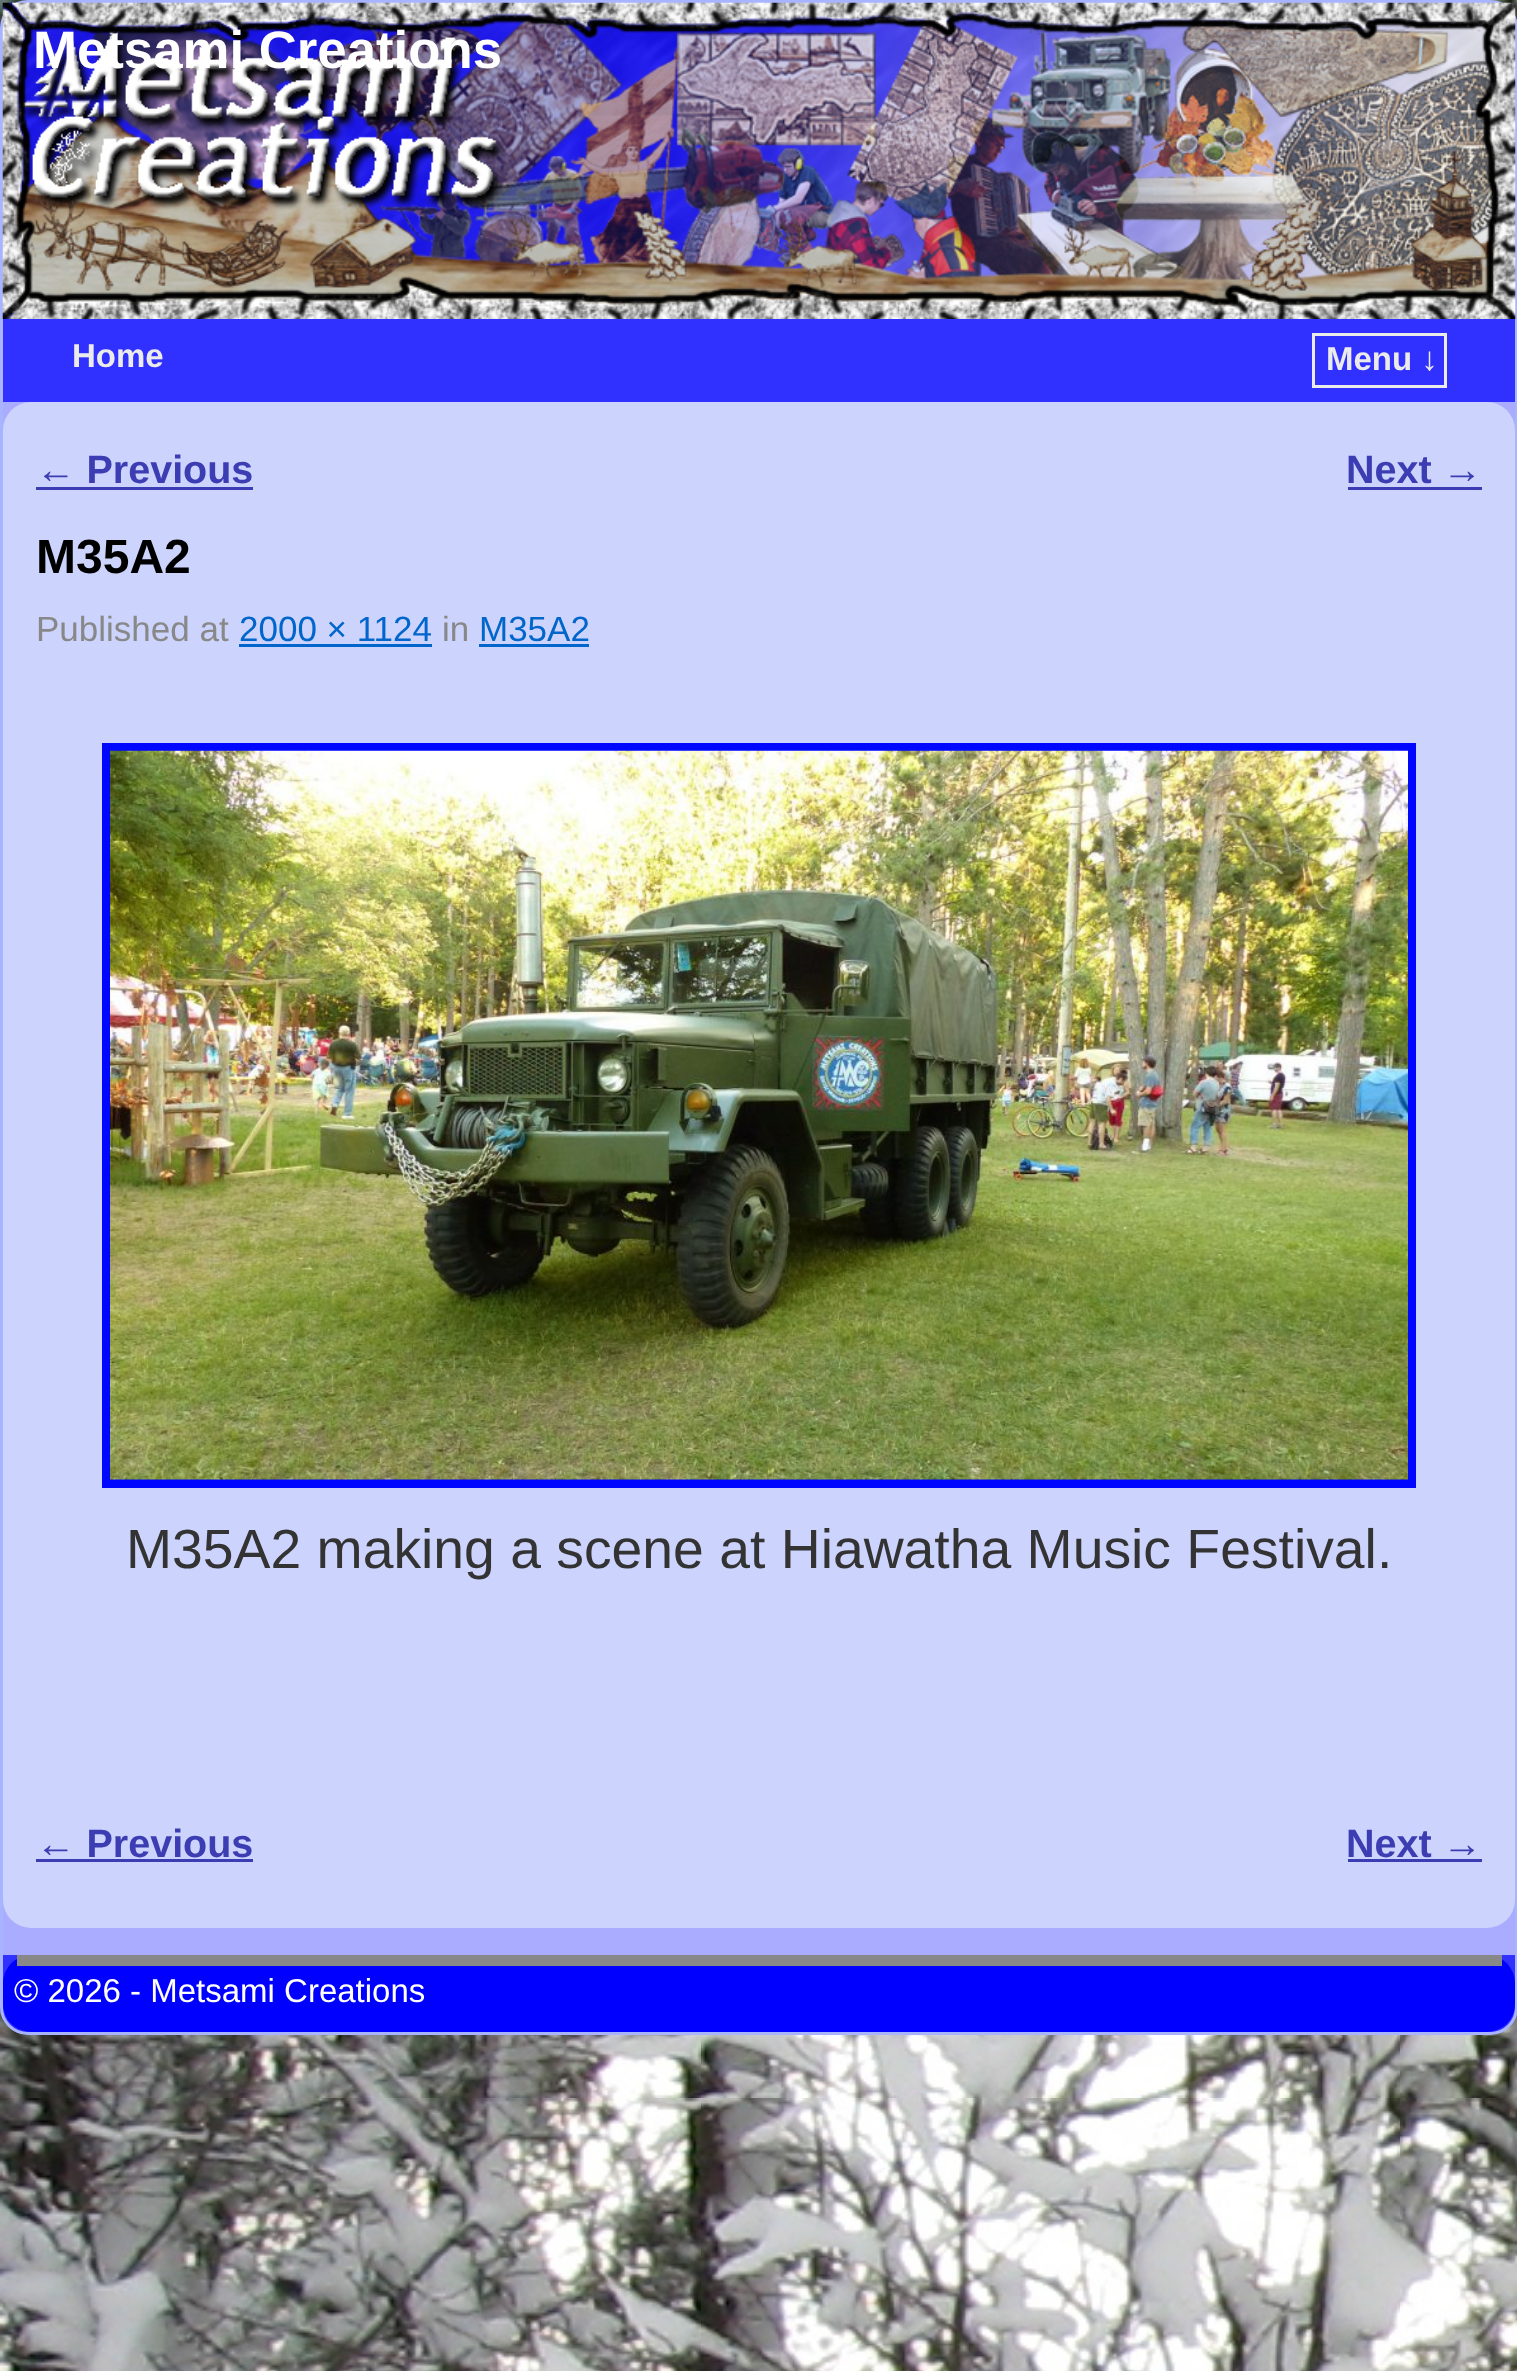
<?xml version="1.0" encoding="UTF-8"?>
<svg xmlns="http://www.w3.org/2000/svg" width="1517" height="2371">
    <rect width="100%" height="100%" fill="#FFFFFF"/>
    <image x="0" y="0" width="1517" height="2371" href="img_01.png"/>
    <rect x="1.5" y="1.5" width="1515" height="2032" rx="26.5" fill="#3030FF" stroke="#A8B4FF" stroke-width="3"/>
    <image x="2" y="2" width="1514" height="317" href="img_02.png"/>
    <text x="33" y="68" font-family="Liberation Sans" font-size="52.75" font-weight="700" fill="#FFFFFF">Metsami Creations</text>
    <text x="72" y="367" font-family="Liberation Sans" font-size="33" font-weight="700" fill="#EBEBEB">Home</text>
    <rect x="1313.5" y="334.5" width="132" height="52" fill="none" stroke="#EBEBEB" stroke-width="3"/>
    <text x="1326" y="370" font-family="Liberation Sans" font-size="33" font-weight="700" fill="#EBEBEB">Menu ↓</text>
    <rect x="3" y="402" width="1512" height="1553" fill="#AAADFF"/>
    <rect x="3" y="402" width="1512" height="1526" rx="28" fill="#CCD3FC"/>
    <text x="36" y="483" font-family="Liberation Sans" font-size="39.5" font-weight="700" fill="#3C3CB3">← Previous</text>
    <rect x="36" y="487" width="217" height="3" fill="#3C3CB3"/>
    <text x="1346" y="483" font-family="Liberation Sans" font-size="39.5" font-weight="700" fill="#3C3CB3">Next →</text>
    <rect x="1348" y="487" width="134" height="3" fill="#3C3CB3"/>
    <text x="36" y="573" font-family="Liberation Sans" font-size="48" font-weight="700" fill="#000000">M35A2</text>
    <text x="36" y="641" font-family="Liberation Sans" font-size="35" fill="#888888">Published at</text>
    <text x="239" y="641" font-family="Liberation Sans" font-size="35" fill="#0066CC">2000 × 1124</text>
    <rect x="239" y="644" width="193" height="3" fill="#0066CC"/>
    <text x="442" y="641" font-family="Liberation Sans" font-size="35" fill="#888888">in</text>
    <text x="479" y="641" font-family="Liberation Sans" font-size="35" fill="#0066CC">M35A2</text>
    <rect x="479" y="644" width="110" height="3" fill="#0066CC"/>
    <rect x="102" y="743" width="1314" height="745" fill="#0007FF"/>
    <image x="110" y="750" width="1298" height="730" href="img_03.png"/>
    <text x="126" y="1568" font-family="Liberation Sans" font-size="55.3" fill="#333333">M35A2 making a scene at Hiawatha Music Festival.</text>
    <text x="36" y="1857" font-family="Liberation Sans" font-size="39.5" font-weight="700" fill="#3C3CB3">← Previous</text>
    <rect x="36" y="1859" width="217" height="3" fill="#3C3CB3"/>
    <text x="1346" y="1857" font-family="Liberation Sans" font-size="39.5" font-weight="700" fill="#3C3CB3">Next →</text>
    <rect x="1348" y="1859" width="134" height="3" fill="#3C3CB3"/>
    <rect x="3" y="1955" width="1512" height="77" rx="28" fill="#0000FF"/>
    <rect x="17" y="1955" width="1485" height="11" fill="#888888"/>
    <text x="14" y="2002" font-family="Liberation Sans" font-size="33" fill="#FFFFFF">© 2026 - Metsami Creations</text>
</svg>
